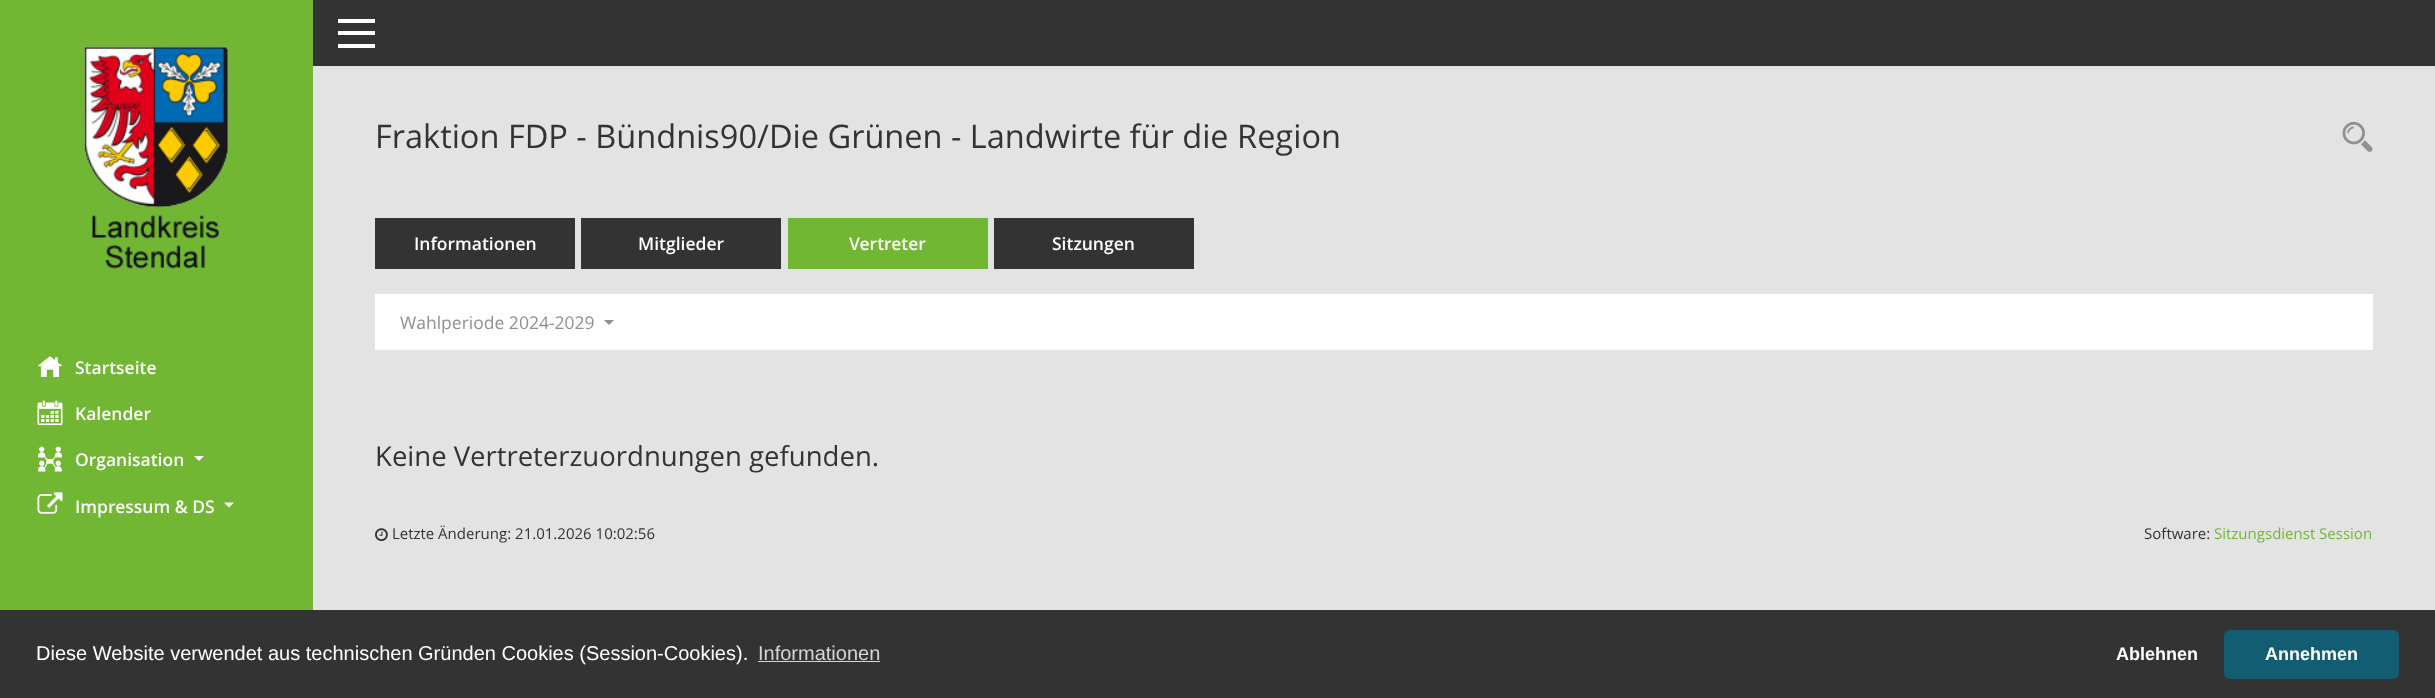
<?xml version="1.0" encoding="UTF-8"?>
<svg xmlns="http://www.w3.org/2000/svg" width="2435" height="698">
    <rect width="100%" height="100%" fill="#E3E3E3"/>
    <rect x="0" y="0" width="313" height="610" fill="#71B733"/>
    <image x="83" y="46" width="146" height="223" href="img_01.png"/>
    <image x="37" y="356" width="26" height="21" href="img_02.png"/>
    <text x="75" y="374" font-family="Open Sans" font-size="17.5" font-weight="600" fill="#FFFFFF">Startseite</text>
    <image x="37" y="400" width="26" height="26" href="img_03.png"/>
    <text x="75" y="420" font-family="Open Sans" font-size="17.5" font-weight="600" fill="#FFFFFF">Kalender</text>
    <image x="38" y="446" width="24" height="26" href="img_04.png"/>
    <text x="75" y="466" font-family="Open Sans" font-size="17.5" font-weight="600" fill="#FFFFFF">Organisation</text>
    <path d="M 194 456 H 204 L 199 461 Z" fill="#FFFFFF"/>
    <image x="37" y="492" width="26" height="22" href="img_05.png"/>
    <text x="75" y="513" font-family="Open Sans" font-size="17.5" font-weight="600" fill="#FFFFFF">Impressum &amp; DS</text>
    <path d="M 224 502.5 H 234 L 229 507.5 Z" fill="#FFFFFF"/>
    <rect x="313" y="0" width="2122" height="66" fill="#333333"/>
    <rect x="338" y="19" width="37" height="4" fill="#FFFFFF"/>
    <rect x="338" y="31" width="37" height="4" fill="#FFFFFF"/>
    <rect x="338" y="44" width="37" height="4" fill="#FFFFFF"/>
    <text x="375" y="148" font-family="Open Sans" font-size="32.5" fill="#333333">Fraktion FDP - Bündnis90/Die Grünen - Landwirte für die Region</text>
    <image x="2342" y="121" width="31" height="31" href="img_06.png"/>
    <rect x="575" y="268" width="1798" height="1" fill="#DEE2E6"/>
    <rect x="375" y="218" width="200" height="51" fill="#333333"/>
    <text x="414" y="250" font-family="Open Sans" font-size="17.5" font-weight="600" fill="#FFFFFF">Informationen</text>
    <rect x="581" y="218" width="200" height="51" fill="#333333"/>
    <text x="638" y="250" font-family="Open Sans" font-size="17.5" font-weight="600" fill="#FFFFFF">Mitglieder</text>
    <rect x="788" y="218" width="200" height="51" fill="#71B733"/>
    <text x="849" y="250" font-family="Open Sans" font-size="17.5" font-weight="600" fill="#FFFFFF">Vertreter</text>
    <rect x="994" y="218" width="200" height="51" fill="#333333"/>
    <text x="1052" y="250" font-family="Open Sans" font-size="17.5" font-weight="600" fill="#FFFFFF">Sitzungen</text>
    <rect x="375" y="294" width="1998" height="56" fill="#FFFFFF"/>
    <text x="400" y="329" font-family="Open Sans" font-size="17.5" fill="#909090">Wahlperiode 2024-2029</text>
    <path d="M 604 320 H 614 L 609 325 Z" fill="#909090"/>
    <text x="375" y="466" font-family="Open Sans" font-size="27.5" fill="#333333">Keine Vertreterzuordnungen gefunden.</text>
    <image x="375" y="528" width="13" height="14" href="img_07.png"/>
    <text x="392" y="539" font-family="Open Sans" font-size="15" fill="#333333">Letzte Änderung: 21.01.2026 10:02:56</text>
    <text x="2144" y="539" font-family="Open Sans" font-size="15" fill="#333333">Software:</text>
    <text x="2214" y="539" font-family="Open Sans" font-size="15" fill="#71B733">Sitzungsdienst Session</text>
    <rect x="0" y="610" width="2435" height="88" fill="#333333"/>
    <text x="36" y="660" font-family="Liberation Sans" font-size="20" fill="#FFFFFF">Diese Website verwendet aus technischen Gründen Cookies (Session-Cookies).</text>
    <text x="758" y="660" font-family="Liberation Sans" font-size="20" fill="#D6D6D6">Informationen</text>
    <rect x="758" y="661" width="122" height="1" fill="#D6D6D6"/>
    <text x="2116" y="660" font-family="Liberation Sans" font-size="18" font-weight="700" fill="#FFFFFF">Ablehnen</text>
    <rect x="2224" y="630" width="175" height="49" rx="6" fill="#135D72"/>
    <text x="2265" y="660" font-family="Liberation Sans" font-size="18" font-weight="700" fill="#FFFFFF">Annehmen</text>
</svg>
